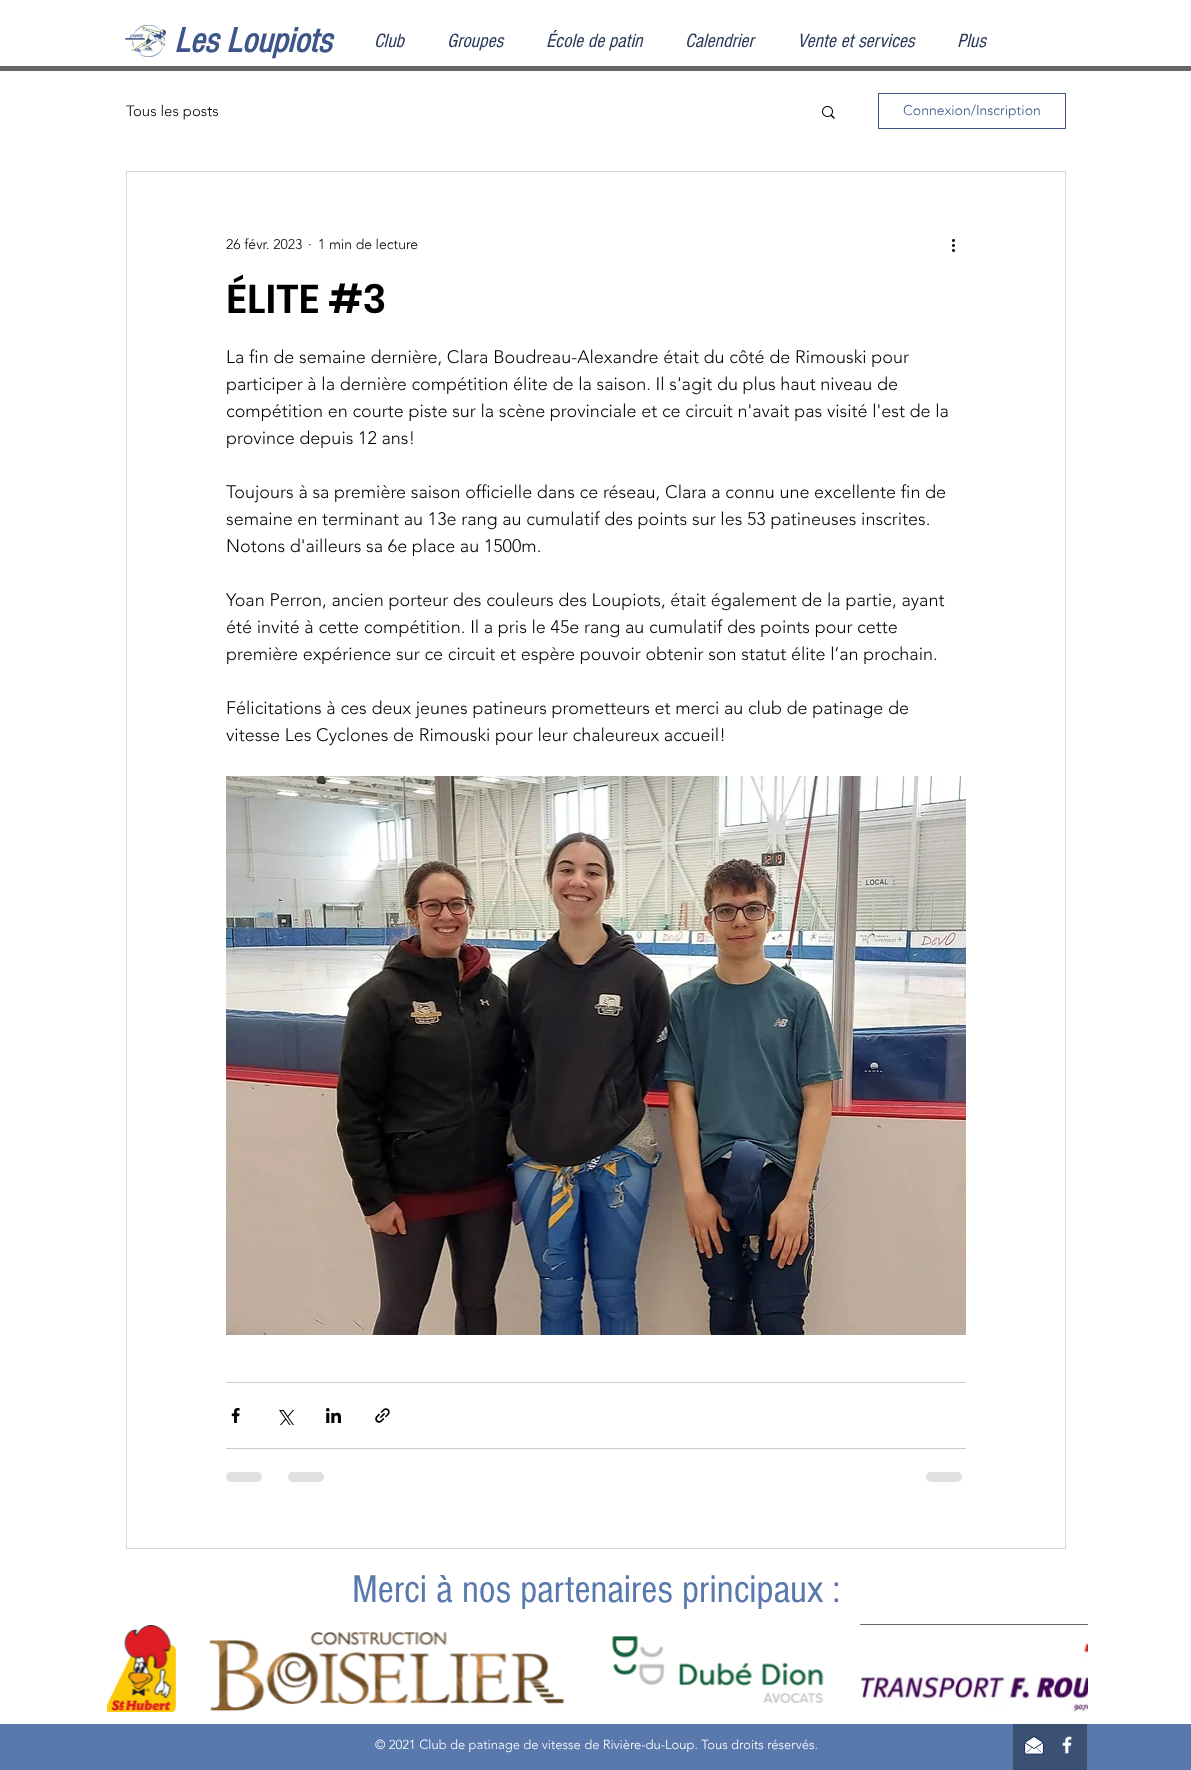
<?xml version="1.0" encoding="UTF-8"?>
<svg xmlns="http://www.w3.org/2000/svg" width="1191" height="1770">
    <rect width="100%" height="100%" fill="#FFFFFF"/>
    <image x="125" y="25" width="41" height="32" href="img_01.png"/>
    <text x="174" y="52" font-family="'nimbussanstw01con'" font-size="36" font-weight="700" font-style="italic" fill="#3D5588">Les Loupiots</text>
    <text x="374" y="47" font-family="'nimbussanstw01con'" font-size="20" font-style="italic" fill="#29395B">Club</text>
    <text x="447" y="47" font-family="'nimbussanstw01con'" font-size="20" font-style="italic" fill="#29395B">Groupes</text>
    <text x="546" y="47" font-family="'nimbussanstw01con'" font-size="20" font-style="italic" fill="#29395B">École de patin</text>
    <text x="685" y="47" font-family="'nimbussanstw01con'" font-size="20" font-style="italic" fill="#29395B">Calendrier</text>
    <text x="797" y="47" font-family="'nimbussanstw01con'" font-size="20" font-style="italic" fill="#29395B">Vente et services</text>
    <text x="957" y="47" font-family="'nimbussanstw01con'" font-size="20" font-style="italic" fill="#29395B">Plus</text>
    <rect x="0" y="66" width="1191" height="5" fill="#666666"/>
    <text x="126" y="116" font-family="'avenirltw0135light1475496'" font-size="15" font-weight="300" fill="#000000">Tous les posts</text>
    <image x="822" y="106" width="13" height="13" href="img_02.png"/>
    <rect x="878.5" y="93.5" width="187" height="35" fill="none" stroke="#3D5588"/>
    <text x="903" y="115" font-family="'avenirltw0135light1475496'" font-size="14" font-weight="300" fill="#3D5588">Connexion/Inscription</text>
    <rect x="126.5" y="171.5" width="939" height="1377" fill="none" stroke="#D9D9D9"/>
    <text x="226" y="249" font-family="'avenirltw0135light1475496'" font-size="14" font-weight="300" fill="#000000">26 févr. 2023</text>
    <text x="308" y="249" font-family="'avenirltw0135light1475496'" font-size="14" font-weight="300" fill="#000000">·</text>
    <text x="318" y="249" font-family="'avenirltw0135light1475496'" font-size="14" font-weight="300" fill="#000000">1 min de lecture</text>
    <image x="952" y="239" width="3" height="13" href="img_03.png"/>
    <text x="226" y="313" font-family="Poppins" font-size="40" font-weight="600" fill="#000000">ÉLITE #3</text>
    <text font-family="'avenirltw0135light1475496'" font-size="18" font-weight="300" fill="#000000">
        <tspan x="226" y="363">La fin de semaine dernière, Clara Boudreau-Alexandre était du côté de Rimouski pour</tspan>
        <tspan x="226" y="390">participer à la dernière compétition élite de la saison. Il s'agit du plus haut niveau de</tspan>
        <tspan x="226" y="417">compétition en courte piste sur la scène provinciale et ce circuit n'avait pas visité l'est de la</tspan>
        <tspan x="226" y="444">province depuis 12 ans!</tspan>
    </text>
    <text font-family="'avenirltw0135light1475496'" font-size="18" font-weight="300" fill="#000000">
        <tspan x="226" y="498">Toujours à sa première saison officielle dans ce réseau, Clara a connu une excellente fin de</tspan>
        <tspan x="226" y="525">semaine en terminant au 13e rang au cumulatif des points sur les 53 patineuses inscrites.</tspan>
        <tspan x="226" y="552">Notons d'ailleurs sa 6e place au 1500m.</tspan>
    </text>
    <text font-family="'avenirltw0135light1475496'" font-size="18" font-weight="300" fill="#000000">
        <tspan x="226" y="606">Yoan Perron, ancien porteur des couleurs des Loupiots, était également de la partie, ayant</tspan>
        <tspan x="226" y="633">été invité à cette compétition. Il a pris le 45e rang au cumulatif des points pour cette</tspan>
        <tspan x="226" y="660">première expérience sur ce circuit et espère pouvoir obtenir son statut élite l’an prochain.</tspan>
    </text>
    <text font-family="'avenirltw0135light1475496'" font-size="18" font-weight="300" fill="#000000">
        <tspan x="226" y="714">Félicitations à ces deux jeunes patineurs prometteurs et merci au club de patinage de</tspan>
        <tspan x="226" y="741">vitesse Les Cyclones de Rimouski pour leur chaleureux accueil!</tspan>
    </text>
    <image x="226" y="776" width="740" height="559" href="img_04.png"/>
    <rect x="226" y="1382" width="740" height="1" fill="#CCCCCC"/>
    <image x="231" y="1408" width="9" height="15" href="img_05.png"/>
    <image x="279" y="1410" width="15" height="15" href="img_06.png"/>
    <image x="326" y="1408" width="15" height="15" href="img_07.png"/>
    <image x="375" y="1408" width="15" height="15" href="img_08.png"/>
    <rect x="226" y="1448" width="740" height="1" fill="#CCCCCC"/>
    <rect x="226" y="1472" width="36" height="10" rx="5" fill="#E0E0E0"/>
    <rect x="288" y="1472" width="36" height="10" rx="5" fill="#E0E0E0"/>
    <rect x="926" y="1472" width="36" height="10" rx="5" fill="#E0E0E0"/>
    <text x="352" y="1602" font-family="'nimbussanstw01con'" font-size="40" fill="#5979AD">Merci à nos partenaires principaux :</text>
    <image x="107" y="1625" width="69" height="87" href="img_09.png"/>
    <image x="209" y="1632" width="356" height="79" href="img_10.png"/>
    <image x="612" y="1636" width="212" height="67" href="img_11.png"/>
    <rect x="860" y="1624" width="228" height="1" fill="#666666"/>
    <image x="860" y="1625" width="228" height="87" href="img_12.png"/>
    <rect x="0" y="1724" width="1191" height="46" fill="#5979AD"/>
    <text x="375" y="1749" font-family="'avenirltw0135light1475496'" font-size="13" font-weight="300" fill="#FFFFFF">© 2021 Club de patinage de vitesse de Rivière-du-Loup. Tous droits réservés.</text>
    <rect x="1013" y="1724" width="74" height="46" fill="#3B5173"/>
    <image x="1024" y="1736" width="20" height="19" href="img_13.png"/>
    <image x="1062" y="1736" width="10" height="18" href="img_14.png"/>
</svg>
